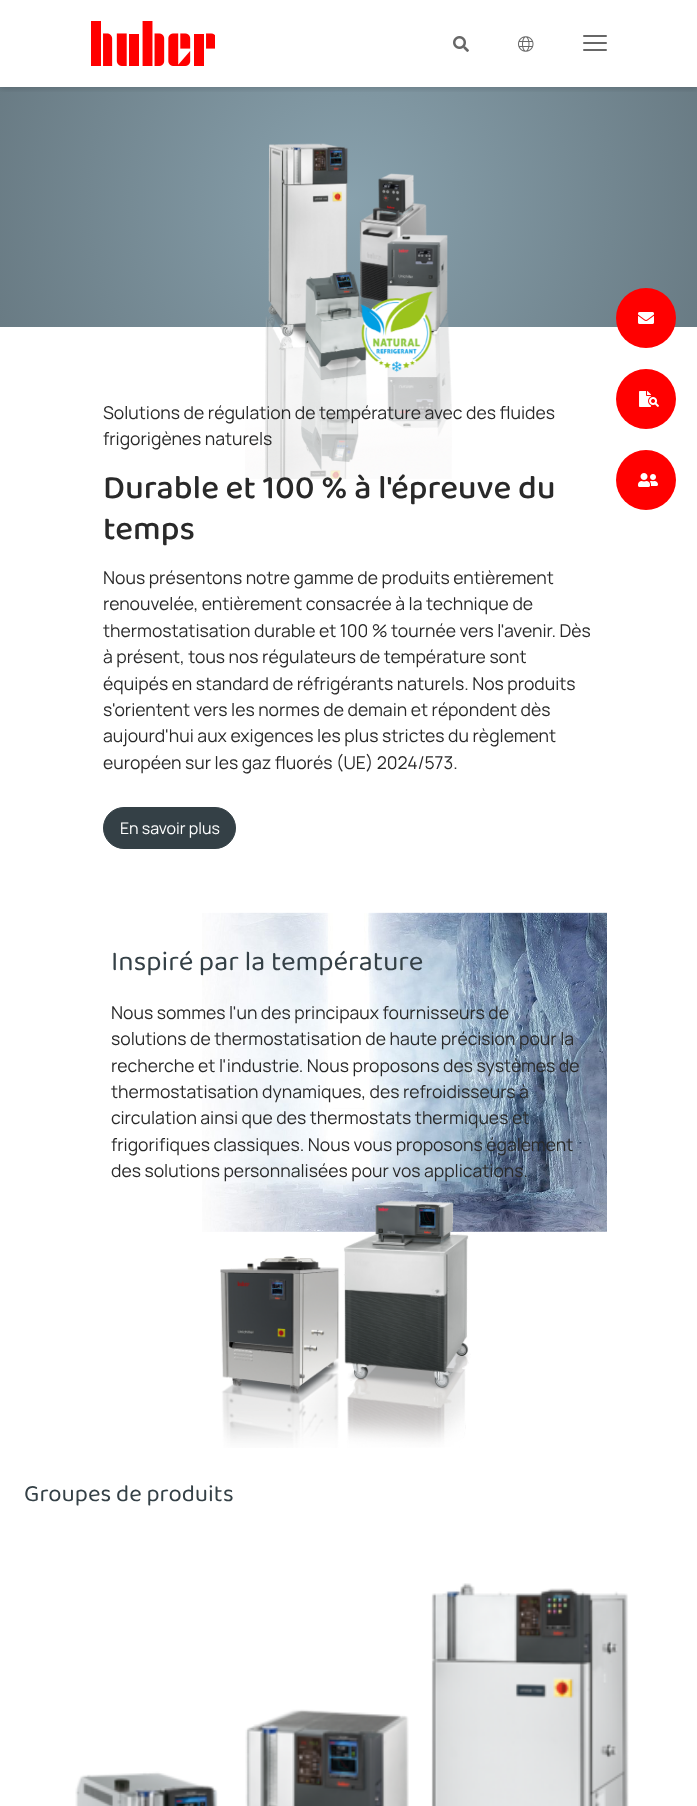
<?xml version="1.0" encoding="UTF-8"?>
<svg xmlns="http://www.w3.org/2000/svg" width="697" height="1806">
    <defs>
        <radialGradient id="g1" gradientUnits="userSpaceOnUse" cx="349" cy="202" r="370"><stop offset="0" stop-color="#89A2AE"/><stop offset="1" stop-color="#697B84"/></radialGradient>
        <clipPath id="clip1"><rect x="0" y="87" width="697" height="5"/></clipPath>
        <filter id="blur1" x="-50%" y="-200%" width="200%" height="500%"><feGaussianBlur stdDeviation="3"/></filter>
    </defs>
    <rect width="100%" height="100%" fill="#FFFFFF"/>
    <rect x="0" y="87" width="697" height="240" fill="url(#g1)"/>
    <g clip-path="url(#clip1)">
        <rect x="0" y="2" width="697" height="87" fill="#000000" fill-opacity="0.14" filter="url(#blur1)"/>
    </g>
    <image x="91" y="21" width="124" height="45" href="img_01.png"/>
    <image x="453" y="36" width="16" height="16" href="img_02.png"/>
    <image x="518" y="36" width="16" height="16" href="img_03.png"/>
    <rect x="583" y="35" width="24" height="2" rx="1" fill="#676767"/>
    <rect x="583" y="42" width="24" height="2" rx="1" fill="#676767"/>
    <rect x="583" y="49" width="24" height="2" rx="1" fill="#676767"/>
    <image x="245" y="143" width="207" height="336" href="img_04.png"/>
    <text font-family="Manrope" font-size="17.6" font-weight="200" fill="#292929">
        <tspan x="103" y="419">Solutions de régulation de température avec des fluides</tspan>
        <tspan x="103" y="445">frigorigènes naturels</tspan>
    </text>
    <text font-family="'Baloo Chettan 2'" font-size="33.6" font-weight="500" fill="#292929">
        <tspan x="103" y="498">Durable et 100 % à l'épreuve du</tspan>
        <tspan x="103" y="539">temps</tspan>
    </text>
    <text font-family="Manrope" font-size="17.6" font-weight="200" fill="#292929">
        <tspan x="103" y="584">Nous présentons notre gamme de produits entièrement</tspan>
        <tspan x="103" y="610">renouvelée, entièrement consacrée à la technique de</tspan>
        <tspan x="103" y="637">thermostatisation durable et 100 % tournée vers l'avenir. Dès</tspan>
        <tspan x="103" y="663">à présent, tous nos régulateurs de température sont</tspan>
        <tspan x="103" y="690">équipés en standard de réfrigérants naturels. Nos produits</tspan>
        <tspan x="103" y="716">s'orientent vers les normes de demain et répondent dès</tspan>
        <tspan x="103" y="742">aujourd'hui aux exigences les plus strictes du règlement</tspan>
        <tspan x="103" y="769">européen sur les gaz fluorés (UE) 2024/573.</tspan>
    </text>
    <rect x="103.5" y="807.5" width="132" height="41" rx="20.5" fill="#344046" stroke="#344046"/>
    <text x="120" y="834" font-family="Manrope" font-size="16" font-weight="200" fill="#FFFFFF">En savoir plus</text>
    <image x="202" y="912" width="405" height="320" href="img_05.png"/>
    <text x="111" y="970" font-family="'Baloo Chettan 2'" font-size="28" fill="#344046">Inspiré par la température</text>
    <text font-family="Manrope" font-size="17.6" font-weight="200" fill="#292929">
        <tspan x="111" y="1019">Nous sommes l'un des principaux fournisseurs de</tspan>
        <tspan x="111" y="1045">solutions de thermostatisation de haute précision pour la</tspan>
        <tspan x="111" y="1072">recherche et l'industrie. Nous proposons des systèmes de</tspan>
        <tspan x="111" y="1098">thermostatisation dynamiques, des refroidisseurs à</tspan>
        <tspan x="111" y="1124">circulation ainsi que des thermostats thermiques et</tspan>
        <tspan x="111" y="1151">frigorifiques classiques. Nous vous proposons également</tspan>
        <tspan x="111" y="1177">des solutions personnalisées pour vos applications.</tspan>
    </text>
    <image x="220" y="1200" width="251" height="248" href="img_06.png"/>
    <text x="24" y="1501" font-family="'Baloo Chettan 2'" font-size="24" fill="#344046">Groupes de produits</text>
    <image x="75" y="1583" width="554" height="223" href="img_07.png"/>
    <circle cx="646" cy="318" r="30" fill="#FF0000"/>
    <image x="638" y="312" width="16" height="12" href="img_08.png"/>
    <circle cx="646" cy="399" r="30" fill="#FF0000"/>
    <image x="639" y="391" width="20" height="16" href="img_09.png"/>
    <circle cx="646" cy="480" r="30" fill="#FF0000"/>
    <image x="638" y="473" width="20" height="14" href="img_10.png"/>
</svg>
